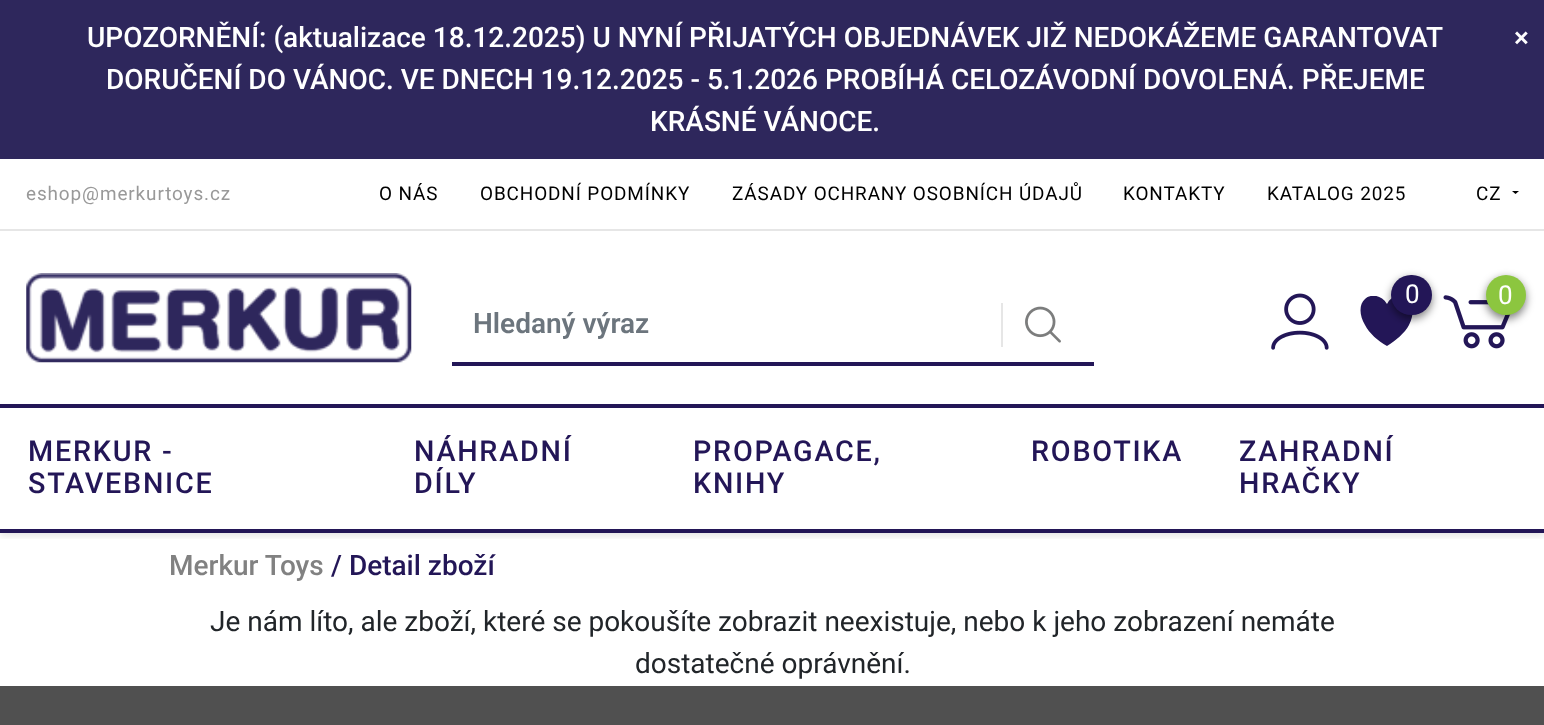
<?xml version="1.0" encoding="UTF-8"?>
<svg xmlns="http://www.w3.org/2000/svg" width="1544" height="725">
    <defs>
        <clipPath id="clip1"><rect x="1355" y="296" width="63" height="51"/></clipPath>
        <filter id="blur1" x="-50%" y="-200%" width="200%" height="500%"><feGaussianBlur stdDeviation="4.5"/></filter>
        <clipPath id="clip2"><rect x="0" y="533" width="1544" height="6"/></clipPath>
        <filter id="blur2" x="-50%" y="-200%" width="200%" height="500%"><feGaussianBlur stdDeviation="3.5"/></filter>
    </defs>
    <rect width="100%" height="100%" fill="#FFFFFF"/>
    <rect x="0" y="0" width="1544" height="159" fill="#2E275C"/>
    <text x="87" y="47" font-family="Roboto" font-size="28" font-weight="500" fill="#FFFFFF">UPOZORNĚNÍ: (aktualizace 18.12.2025) U NYNÍ PŘIJATÝCH OBJEDNÁVEK JIŽ NEDOKÁŽEME GARANTOVAT</text>
    <text x="106" y="89" font-family="Roboto" font-size="28" font-weight="500" fill="#FFFFFF">DORUČENÍ DO VÁNOC. VE DNECH 19.12.2025 - 5.1.2026 PROBÍHÁ CELOZÁVODNÍ DOVOLENÁ. PŘEJEME</text>
    <text x="650" y="131" font-family="Roboto" font-size="28" font-weight="500" fill="#FFFFFF">KRÁSNÉ VÁNOCE.</text>
    <text x="1514" y="47" font-family="Roboto" font-size="28" font-weight="500" fill="#FFFFFF">×</text>
    <text x="26" y="200" font-family="Roboto" font-size="18.9" letter-spacing="0.9" fill="#999999">eshop@merkurtoys.cz</text>
    <text x="379" y="200" font-family="Roboto" font-size="18.9" letter-spacing="0.9" fill="#000000">O NÁS</text>
    <text x="480" y="200" font-family="Roboto" font-size="18.9" letter-spacing="0.9" fill="#000000">OBCHODNÍ PODMÍNKY</text>
    <text x="732" y="200" font-family="Roboto" font-size="18.9" letter-spacing="0.9" fill="#000000">ZÁSADY OCHRANY OSOBNÍCH ÚDAJŮ</text>
    <text x="1123" y="200" font-family="Roboto" font-size="18.9" letter-spacing="0.9" fill="#000000">KONTAKTY</text>
    <text x="1267" y="200" font-family="Roboto" font-size="18.9" letter-spacing="0.9" fill="#000000">KATALOG 2025</text>
    <text x="1476" y="200" font-family="Roboto" font-size="18.9" letter-spacing="0.9" fill="#000000">CZ</text>
    <path d="M 1512 191 H 1519 L 1515.5 194 Z" fill="#000000"/>
    <rect x="0" y="229" width="1544" height="2" fill="#E6E6E6"/>
    <image x="26" y="273" width="386" height="90" href="img_01.png"/>
    <image x="1271" y="293" width="58" height="57" href="img_02.png"/>
    <g clip-path="url(#clip1)">
        <path d="M 1387 304 C 1392 294 1403 294 1409 299 C 1414 304 1414 315 1409 325 C 1405 333 1395 341 1387 346 C 1378 341 1369 333 1365 325 C 1359 315 1359 304 1365 299 C 1370 294 1381 294 1387 304 Z" fill="#231657" fill-rule="evenodd"/>
    </g>
    <image x="1443" y="295" width="68" height="54" href="img_03.png"/>
    <rect x="1391" y="278" width="41" height="41" rx="20.5" fill="#010202" fill-opacity="0.5" filter="url(#blur1)"/>
    <rect x="1391" y="275" width="41" height="40" rx="20" fill="#231657"/>
    <text x="1405" y="303" font-family="Roboto" font-size="26" fill="#FFFFFF">0</text>
    <rect x="1486" y="278" width="40" height="41" rx="20" fill="#010202" fill-opacity="0.5" filter="url(#blur1)"/>
    <circle cx="1506" cy="295" r="20" fill="#8CC63F"/>
    <text x="1498" y="304" font-family="Roboto" font-size="26" fill="#FFFFFF">0</text>
    <rect x="452" y="362" width="642" height="4" fill="#231657"/>
    <rect x="1001" y="303" width="2" height="44" fill="#E6E6E6"/>
    <image x="1025" y="306" width="36" height="37" href="img_04.png"/>
    <text x="473" y="333" font-family="Roboto" font-size="28" font-weight="600" fill="#6C757D">Hledaný výraz</text>
    <g clip-path="url(#clip2)">
        <rect x="0" y="408" width="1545" height="128" fill="#010202" fill-opacity="0.1" filter="url(#blur2)"/>
    </g>
    <rect x="0" y="404" width="1544" height="4" fill="#231657"/>
    <rect x="0" y="529" width="1544" height="4" fill="#231657"/>
    <text font-family="Roboto" font-size="28.75" font-weight="500" letter-spacing="1.75" fill="#231657">
        <tspan x="28" y="461">MERKUR -</tspan>
        <tspan x="28" y="493">STAVEBNICE</tspan>
    </text>
    <text font-family="Roboto" font-size="28.75" font-weight="500" letter-spacing="1.75" fill="#231657">
        <tspan x="414" y="461">NÁHRADNÍ</tspan>
        <tspan x="414" y="493">DÍLY</tspan>
    </text>
    <text font-family="Roboto" font-size="28.75" font-weight="500" letter-spacing="1.75" fill="#231657">
        <tspan x="693" y="461">PROPAGACE,</tspan>
        <tspan x="693" y="493">KNIHY</tspan>
    </text>
    <text x="1031" y="461" font-family="Roboto" font-size="28.75" font-weight="500" letter-spacing="1.75" fill="#231657">ROBOTIKA</text>
    <text font-family="Roboto" font-size="28.75" font-weight="500" letter-spacing="1.75" fill="#231657">
        <tspan x="1239" y="461">ZAHRADNÍ</tspan>
        <tspan x="1239" y="493">HRAČKY</tspan>
    </text>
    <text x="169" y="575" font-family="Roboto" font-size="28" font-weight="500" fill="#818181">Merkur Toys</text>
    <text x="331" y="575" font-family="Roboto" font-size="28" font-weight="500" fill="#231657">/ Detail zboží</text>
    <text x="210" y="631" font-family="Roboto" font-size="28" fill="#212529">Je nám líto, ale zboží, které se pokoušíte zobrazit neexistuje, nebo k jeho zobrazení nemáte</text>
    <text x="635" y="673" font-family="Roboto" font-size="28" fill="#212529">dostatečné oprávnění.</text>
    <rect x="0" y="686" width="1544" height="39" fill="#505050"/>
</svg>
